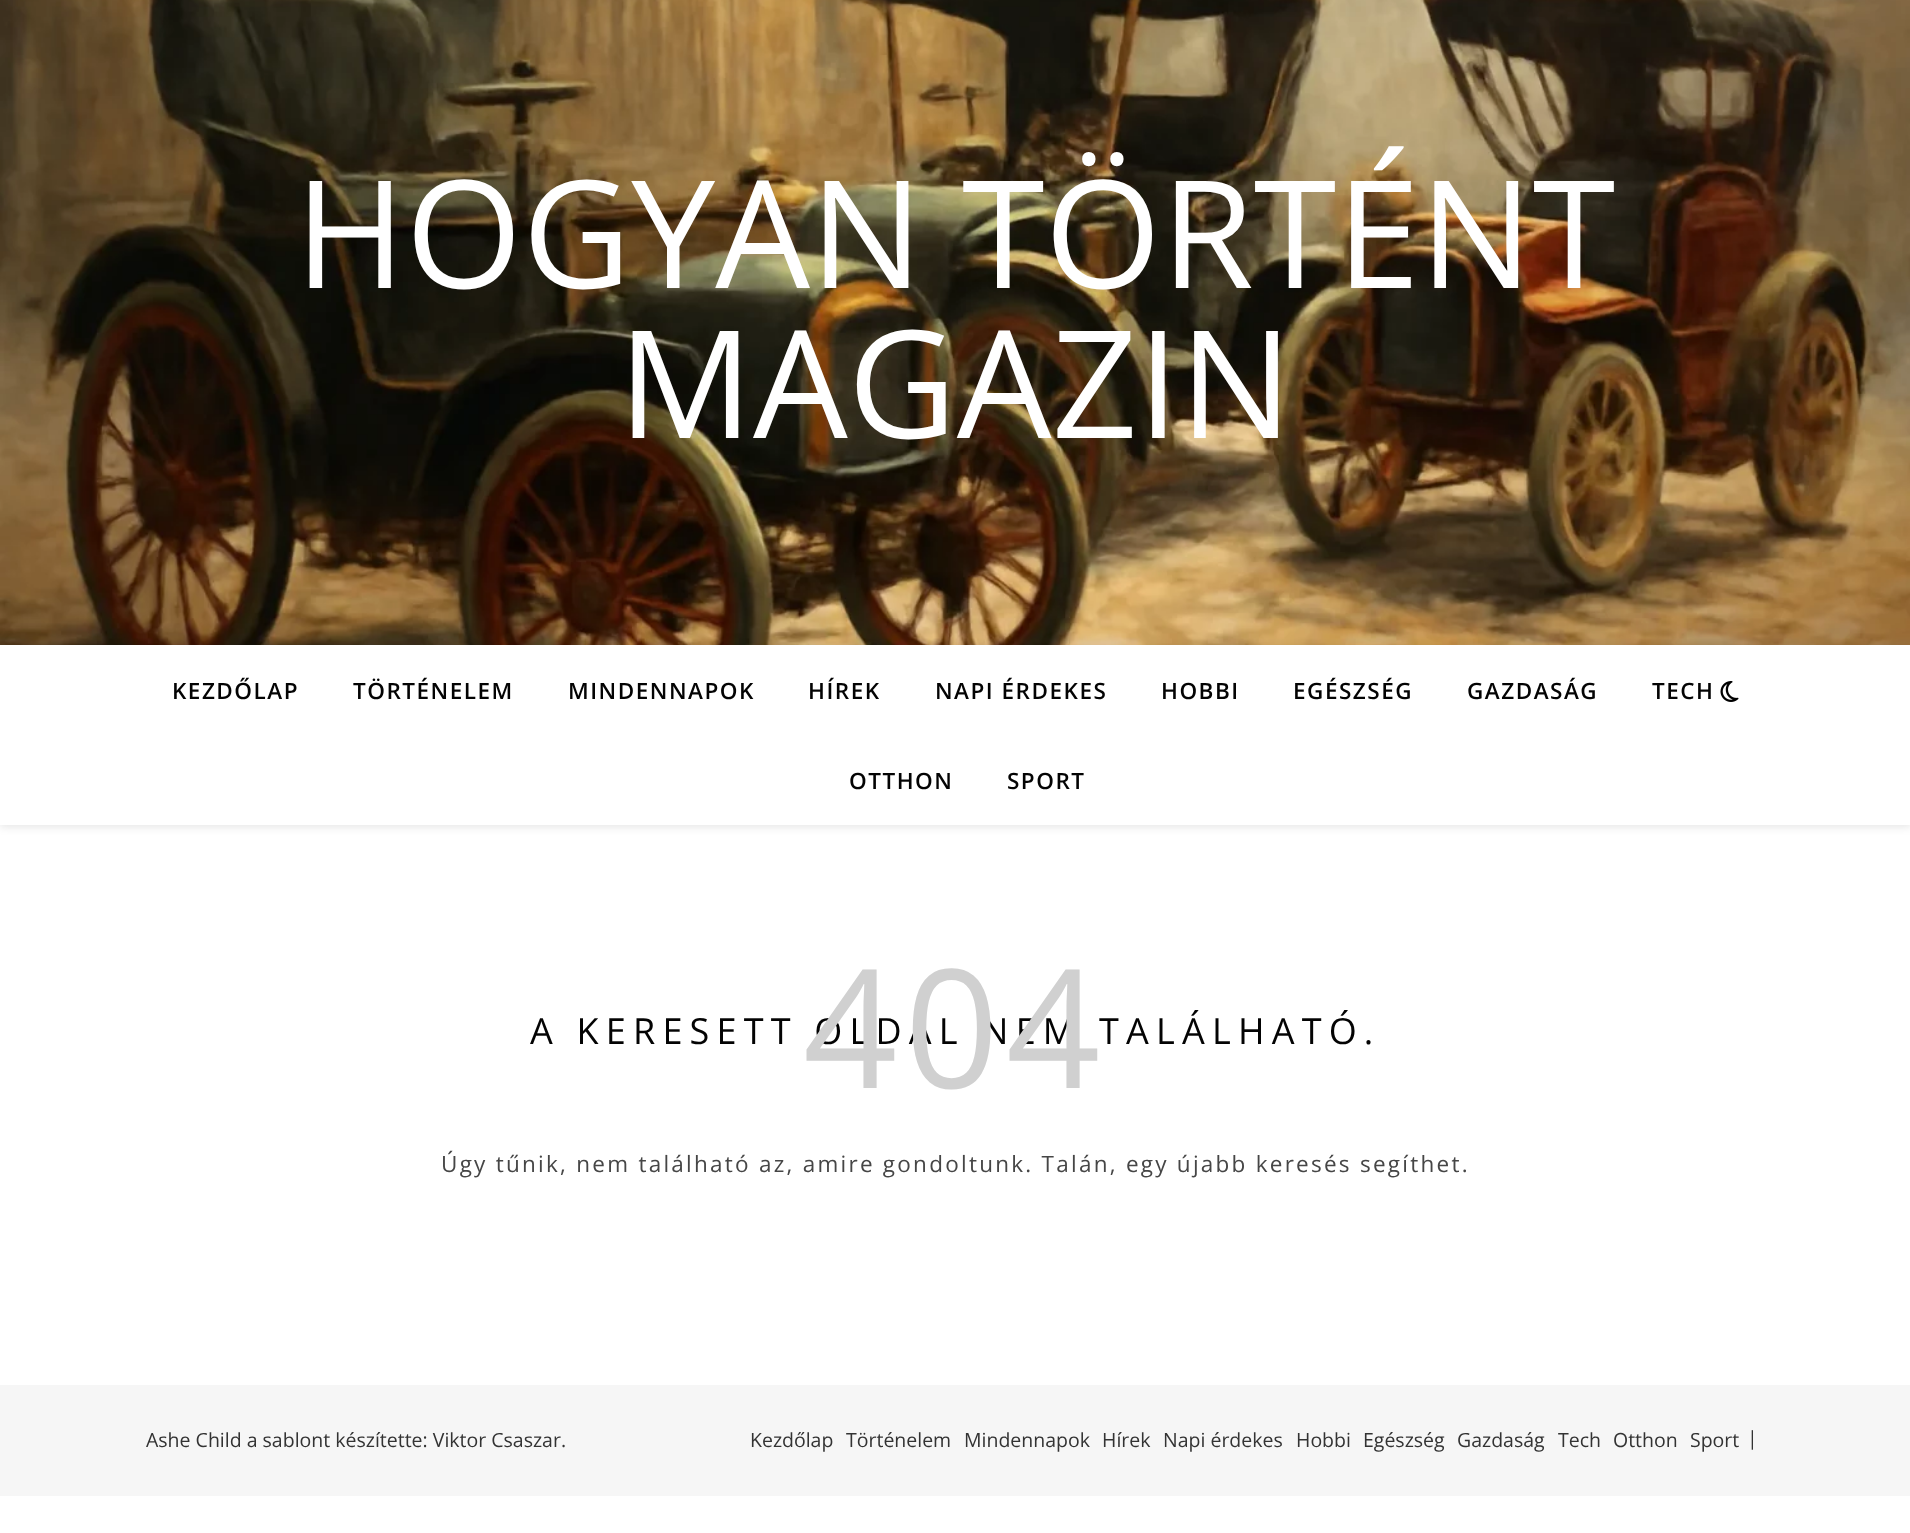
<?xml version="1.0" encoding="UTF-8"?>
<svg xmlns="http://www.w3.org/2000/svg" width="1910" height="1533">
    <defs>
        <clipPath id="clip1"><path d="M 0 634 H 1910 V 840 H 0 Z M 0 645 H 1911 V 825 H 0 Z" clip-rule="evenodd"/></clipPath>
        <filter id="blur1" x="-50%" y="-200%" width="200%" height="500%"><feGaussianBlur stdDeviation="4"/></filter>
    </defs>
    <rect width="100%" height="100%" fill="#FFFFFF"/>
    <image x="0" y="0" width="1910" height="645" href="img_01.png"/>
    <text x="295" y="288" font-family="Open Sans" font-size="150" fill="#FFFFFF">HOGYAN TÖRTÉNT</text>
    <text x="618" y="438" font-family="Open Sans" font-size="150" fill="#FFFFFF">MAGAZIN</text>
    <g clip-path="url(#clip1)">
        <rect x="0" y="647" width="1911" height="180" fill="#000000" fill-opacity="0.1" filter="url(#blur1)"/>
    </g>
    <text x="172" y="699" font-family="Open Sans" font-size="22.5" font-weight="600" letter-spacing="1.5" fill="#030303">KEZDŐLAP</text>
    <text x="353" y="699" font-family="Open Sans" font-size="22.5" font-weight="600" letter-spacing="1.5" fill="#030303">TÖRTÉNELEM</text>
    <text x="568" y="699" font-family="Open Sans" font-size="22.5" font-weight="600" letter-spacing="1.5" fill="#030303">MINDENNAPOK</text>
    <text x="808" y="699" font-family="Open Sans" font-size="22.5" font-weight="600" letter-spacing="1.5" fill="#030303">HÍREK</text>
    <text x="935" y="699" font-family="Open Sans" font-size="22.5" font-weight="600" letter-spacing="1.5" fill="#030303">NAPI ÉRDEKES</text>
    <text x="1161" y="699" font-family="Open Sans" font-size="22.5" font-weight="600" letter-spacing="1.5" fill="#030303">HOBBI</text>
    <text x="1293" y="699" font-family="Open Sans" font-size="22.5" font-weight="600" letter-spacing="1.5" fill="#030303">EGÉSZSÉG</text>
    <text x="1467" y="699" font-family="Open Sans" font-size="22.5" font-weight="600" letter-spacing="1.5" fill="#030303">GAZDASÁG</text>
    <text x="1652" y="699" font-family="Open Sans" font-size="22.5" font-weight="600" letter-spacing="1.5" fill="#030303">TECH</text>
    <text x="849" y="789" font-family="Open Sans" font-size="22.5" font-weight="600" letter-spacing="1.5" fill="#030303">OTTHON</text>
    <text x="1007" y="789" font-family="Open Sans" font-size="22.5" font-weight="600" letter-spacing="1.5" fill="#030303">SPORT</text>
    <image x="1720" y="681" width="19" height="21" href="img_02.png"/>
    <text x="530" y="1044" font-family="Open Sans" font-size="36" letter-spacing="7.2" fill="#030303">A KERESETT OLDAL NEM TALÁLHATÓ.</text>
    <text x="803" y="1088" font-family="Open Sans" font-size="165" letter-spacing="7.2" fill="#D0D0D0">404</text>
    <text x="441" y="1172" font-family="Open Sans" font-size="22.5" letter-spacing="2.25" fill="#464646">Úgy tűnik, nem található az, amire gondoltunk. Talán, egy újabb keresés segíthet.</text>
    <rect x="0" y="1385" width="1910" height="111" fill="#F6F6F6"/>
    <text x="146" y="1447" font-family="Open Sans" font-size="19.5" fill="#333333">Ashe Child a sablont készítette: Viktor Csaszar.</text>
    <text x="750" y="1447" font-family="Open Sans" font-size="19.5" fill="#333333">Kezdőlap</text>
    <text x="846" y="1447" font-family="Open Sans" font-size="19.5" fill="#333333">Történelem</text>
    <text x="964" y="1447" font-family="Open Sans" font-size="19.5" fill="#333333">Mindennapok</text>
    <text x="1102" y="1447" font-family="Open Sans" font-size="19.5" fill="#333333">Hírek</text>
    <text x="1163" y="1447" font-family="Open Sans" font-size="19.5" fill="#333333">Napi érdekes</text>
    <text x="1296" y="1447" font-family="Open Sans" font-size="19.5" fill="#333333">Hobbi</text>
    <text x="1363" y="1447" font-family="Open Sans" font-size="19.5" fill="#333333">Egészség</text>
    <text x="1457" y="1447" font-family="Open Sans" font-size="19.5" fill="#333333">Gazdaság</text>
    <text x="1558" y="1447" font-family="Open Sans" font-size="19.5" fill="#333333">Tech</text>
    <text x="1613" y="1447" font-family="Open Sans" font-size="19.5" fill="#333333">Otthon</text>
    <text x="1690" y="1447" font-family="Open Sans" font-size="19.5" fill="#333333">Sport</text>
    <text x="1747" y="1445" font-family="Open Sans" font-size="19.5" fill="#333333">|</text>
</svg>
